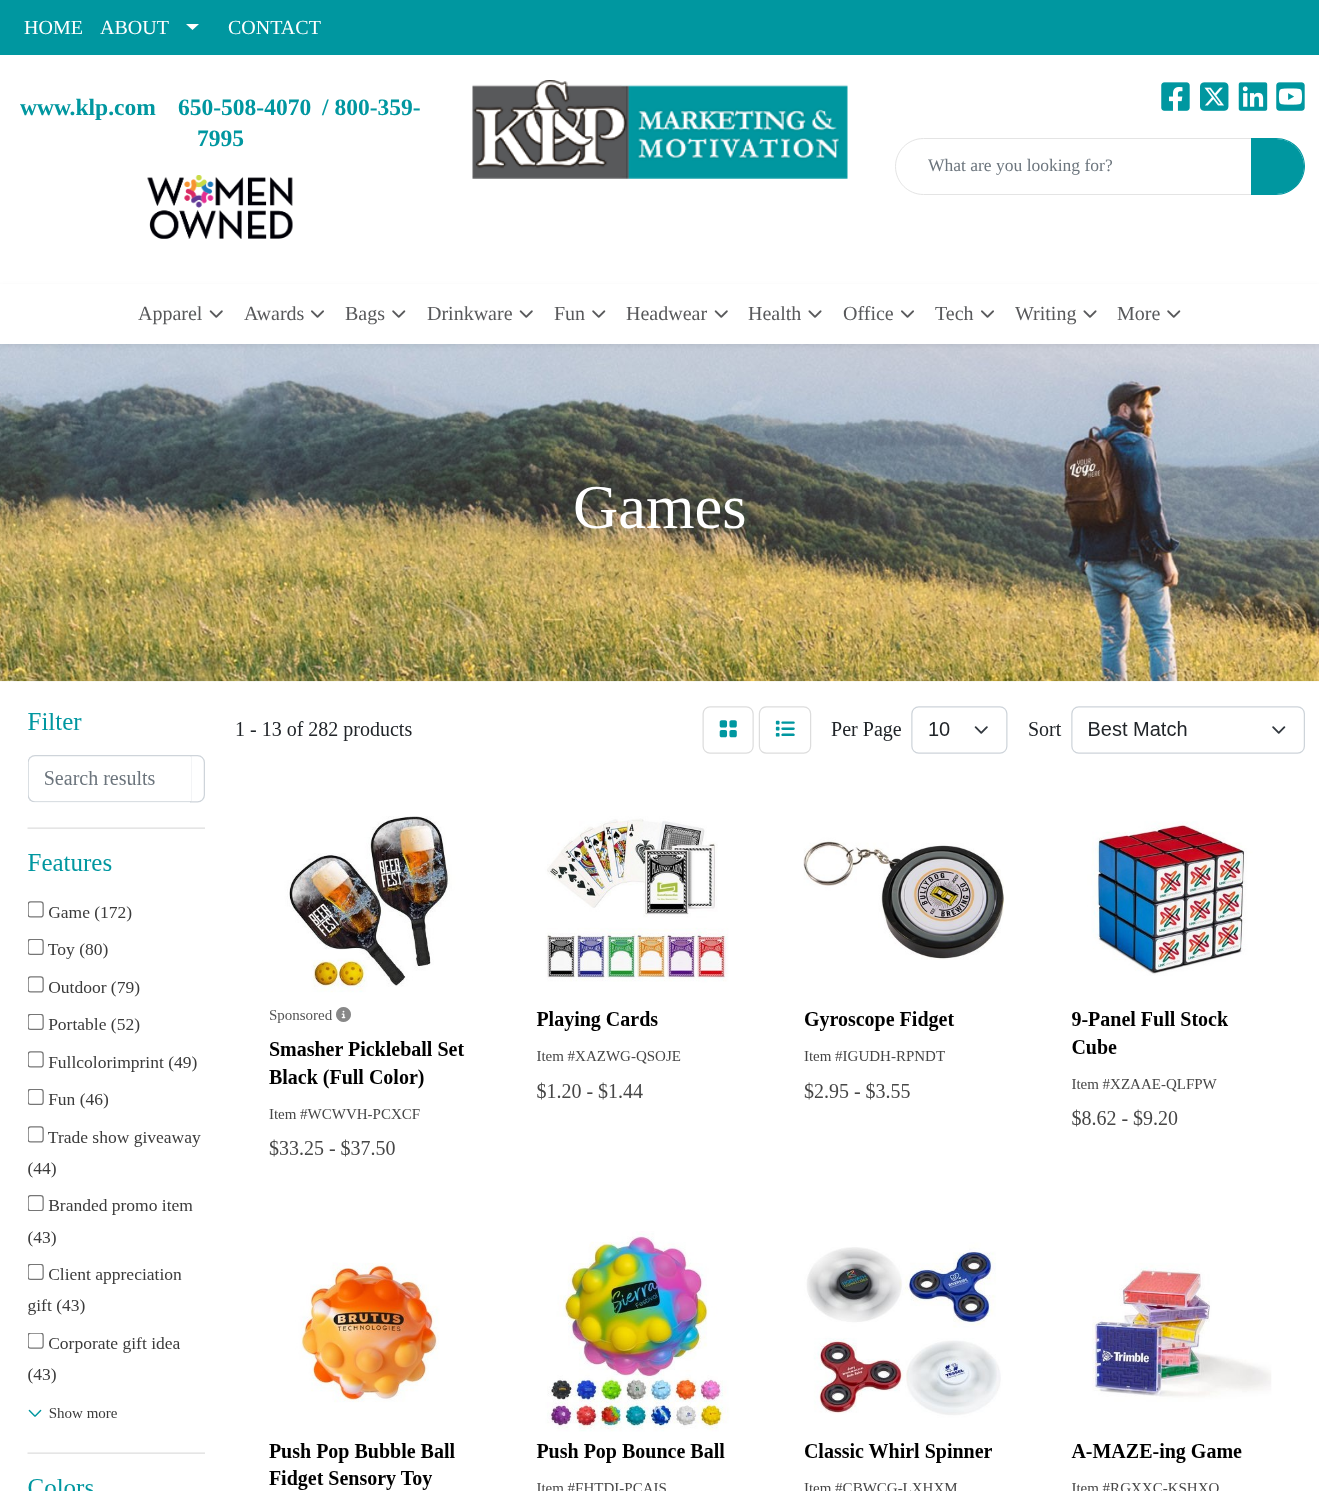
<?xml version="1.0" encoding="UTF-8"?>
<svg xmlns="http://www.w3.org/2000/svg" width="1319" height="1491">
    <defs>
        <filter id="blur1" x="-50%" y="-200%" width="200%" height="500%"><feGaussianBlur stdDeviation="2.5"/></filter>
    </defs>
    <rect width="100%" height="100%" fill="#FFFFFF"/>
    <rect x="0" y="0" width="1319" height="55" fill="#0097A0"/>
    <text x="24" y="34" font-family="Liberation Serif" font-size="20" fill="#FFFFFF">HOME</text>
    <text x="100" y="34" font-family="Liberation Serif" font-size="20" fill="#FFFFFF">ABOUT</text>
    <path d="M 186 24 H 199 L 192.5 30 Z" fill="#FFFFFF"/>
    <text x="228" y="34" font-family="Liberation Serif" font-size="20" fill="#FFFFFF">CONTACT</text>
    <text x="20" y="115" font-family="Liberation Serif" font-size="23.5" font-weight="700" fill="#0097A0">www.klp.com</text>
    <text x="178" y="115" font-family="Liberation Serif" font-size="23.5" font-weight="700" fill="#0097A0">650-508-4070</text>
    <text x="322" y="115" font-family="Liberation Serif" font-size="23.5" font-weight="700" fill="#0097A0">/ 800-359-</text>
    <text x="197" y="146" font-family="Liberation Serif" font-size="23.5" font-weight="700" fill="#0097A0">7995</text>
    <image x="147" y="175" width="146" height="64" href="img_01.png"/>
    <image x="472" y="80" width="376" height="99" href="img_02.png"/>
    <image x="1161" y="82" width="29" height="29" href="img_03.png"/>
    <image x="1200" y="82" width="29" height="29" href="img_04.png"/>
    <image x="1238" y="82" width="30" height="29" href="img_05.png"/>
    <image x="1276" y="82" width="29" height="29" href="img_06.png"/>
    <path d="M 923.5 138.5 H 1252.5 V 194.5 H 923.5 C 908 194.5 895.5 182 895.5 166.5 C 895.5 151 908 138.5 923.5 138.5 Z" fill="none" stroke="#E4E4E4"/>
    <text x="928" y="171" font-family="Liberation Serif" font-size="17.5" fill="#6C757D">What are you looking for?</text>
    <path d="M 1251 139 H 1276.5 C 1291.5 139 1304 151.5 1304 166.5 C 1304 181.5 1291.5 194 1276.5 194 H 1251 Z" fill="#0097A0"/>
    <path d="M 1251 138 H 1276 C 1292 138 1305 150 1305 166 C 1305 182 1292 195 1276 195 H 1251 Z M 1251 139 H 1276 C 1291 139 1304 151 1304 166 C 1304 181 1291 194 1276 194 H 1251 Z" fill="#0097A0" fill-rule="evenodd"/>
    <image x="0" y="344" width="1319" height="338" href="img_11.png"/>
    <rect x="0" y="286" width="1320" height="60" fill="#000000" fill-opacity="0.07" filter="url(#blur1)"/>
    <rect x="0" y="284" width="1319" height="60" fill="#FFFFFF"/>
    <text x="138" y="320" font-family="Liberation Serif" font-size="20" fill="#58595B">Apparel</text>
    <image x="209" y="310" width="14" height="8" href="img_07.png"/>
    <text x="244" y="320" font-family="Liberation Serif" font-size="20" fill="#58595B">Awards</text>
    <image x="311" y="310" width="13" height="8" href="img_08.png"/>
    <text x="345" y="320" font-family="Liberation Serif" font-size="20" fill="#58595B">Bags</text>
    <image x="392" y="310" width="14" height="8" href="img_09.png"/>
    <text x="427" y="320" font-family="Liberation Serif" font-size="20" fill="#58595B">Drinkware</text>
    <image x="519" y="310" width="14" height="8" href="img_07.png"/>
    <text x="554" y="320" font-family="Liberation Serif" font-size="20" fill="#58595B">Fun</text>
    <image x="592" y="310" width="14" height="8" href="img_09.png"/>
    <text x="626" y="320" font-family="Liberation Serif" font-size="20" fill="#58595B">Headwear</text>
    <image x="714" y="310" width="14" height="8" href="img_07.png"/>
    <text x="748" y="320" font-family="Liberation Serif" font-size="20" fill="#58595B">Health</text>
    <image x="808" y="310" width="14" height="8" href="img_10.png"/>
    <text x="843" y="320" font-family="Liberation Serif" font-size="20" fill="#58595B">Office</text>
    <image x="901" y="310" width="13" height="8" href="img_08.png"/>
    <text x="935" y="320" font-family="Liberation Serif" font-size="20" fill="#58595B">Tech</text>
    <image x="981" y="310" width="13" height="8" href="img_08.png"/>
    <text x="1015" y="320" font-family="Liberation Serif" font-size="20" fill="#58595B">Writing</text>
    <image x="1083" y="310" width="14" height="8" href="img_10.png"/>
    <text x="1117" y="320" font-family="Liberation Serif" font-size="20" fill="#58595B">More</text>
    <image x="1167" y="310" width="14" height="8" href="img_09.png"/>
    <text x="573" y="528" font-family="Liberation Serif" font-size="62.5" fill="#FFFFFF">Games</text>
    <image x="27" y="706" width="1278" height="785" href="img_12.png"/>
</svg>
